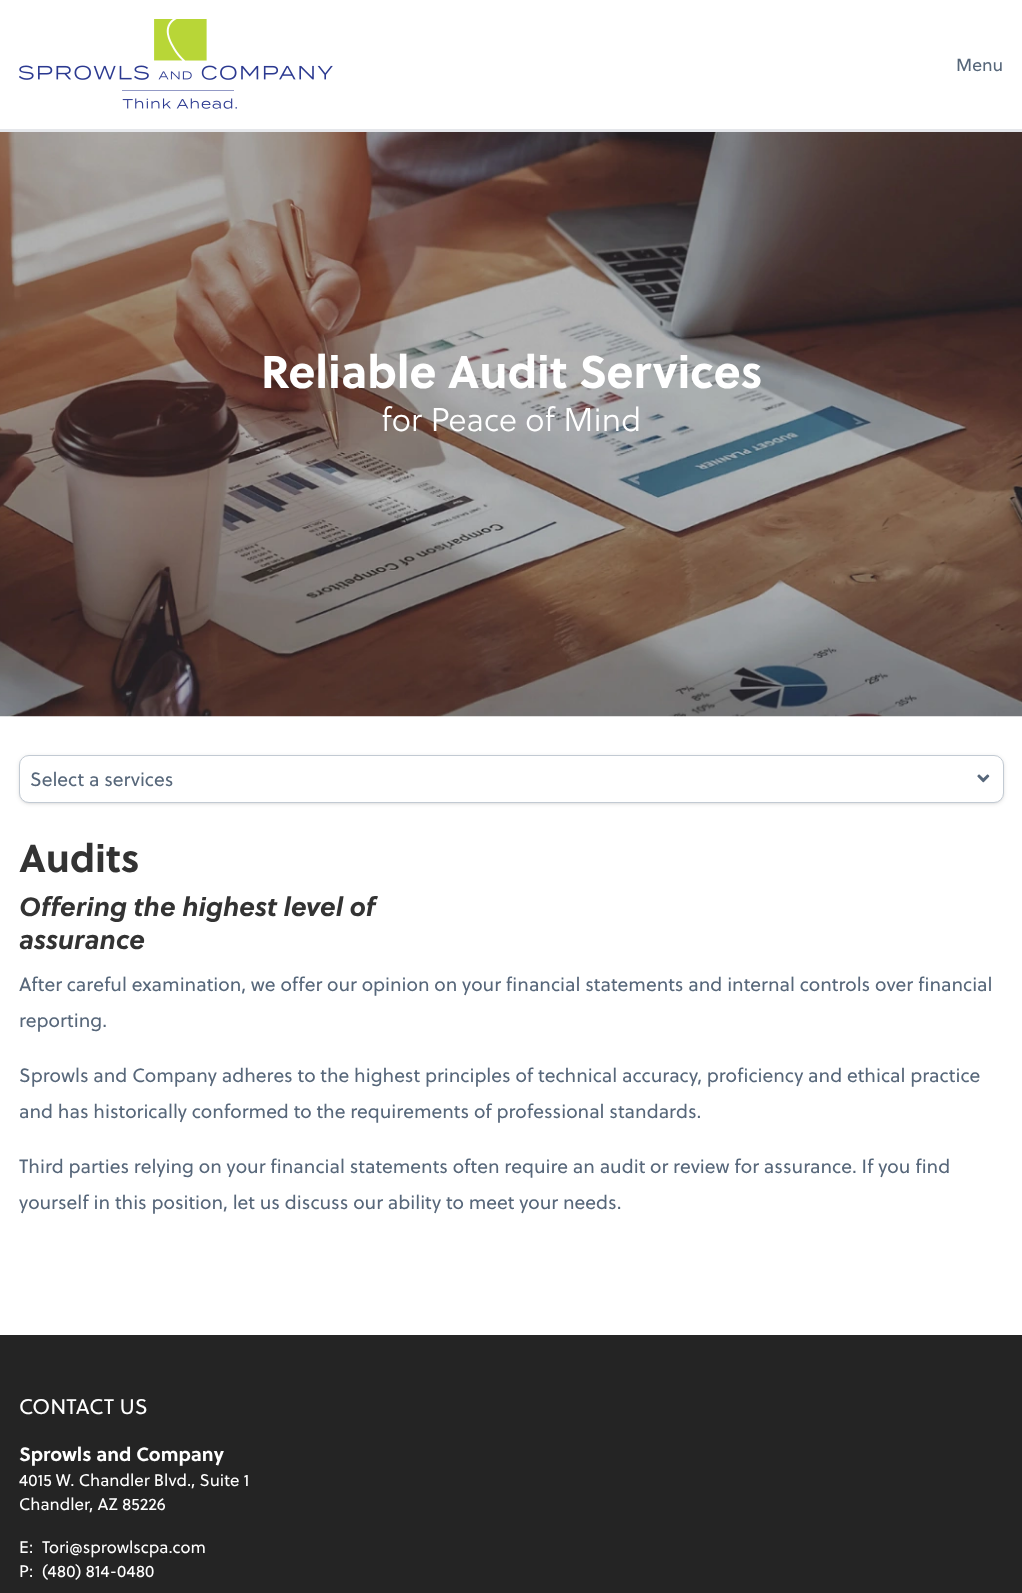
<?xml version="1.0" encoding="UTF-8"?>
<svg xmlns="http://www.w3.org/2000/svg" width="1022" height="1593">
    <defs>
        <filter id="blur1" x="-50%" y="-200%" width="200%" height="500%"><feGaussianBlur stdDeviation="1"/></filter>
        <filter id="blur2" x="-50%" y="-200%" width="200%" height="500%"><feGaussianBlur stdDeviation="2"/></filter>
    </defs>
    <rect width="100%" height="100%" fill="#FFFFFF"/>
    <rect x="0" y="129" width="1022" height="3" fill="#E5E7EB"/>
    <image x="19" y="19" width="314" height="90" href="img_01.png"/>
    <text x="956" y="71" font-family="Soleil" font-size="17.5" fill="#57677A">Menu</text>
    <image x="0" y="132" width="1022" height="585" href="img_02.png"/>
    <text x="261" y="388" font-family="Soleil" font-size="45.75" font-weight="700" fill="#FFFFFF">Reliable Audit Services</text>
    <text x="381" y="431" font-family="Soleil" font-size="32.75" font-weight="300" fill="#FFFFFF">for Peace of Mind</text>
    <rect x="20" y="758" width="983" height="45" rx="9" fill="#000000" fill-opacity="0.1" filter="url(#blur1)"/>
    <rect x="19" y="756" width="985" height="48" rx="10" fill="#000000" fill-opacity="0.1" filter="url(#blur2)"/>
    <rect x="19.5" y="755.5" width="984" height="47" rx="9.5" fill="#FFFFFF" stroke="#C2CAD3"/>
    <text x="30" y="786" font-family="Soleil" font-size="19.17" fill="#57677A">Select a services</text>
    <image x="977" y="774" width="13" height="9" href="img_03.png"/>
    <text x="19" y="872" font-family="Soleil" font-size="39" font-weight="700" fill="#333333">Audits</text>
    <text font-family="Soleil" font-size="26.4" font-weight="700" font-style="italic" fill="#333333">
        <tspan x="19" y="916">Offering the highest level of</tspan>
        <tspan x="19" y="949">assurance</tspan>
    </text>
    <text font-family="Soleil" font-size="19.17" fill="#57677A">
        <tspan x="19" y="991">After careful examination, we offer our opinion on your financial statements and internal controls over financial</tspan>
        <tspan x="19" y="1027">reporting.</tspan>
    </text>
    <text font-family="Soleil" font-size="19.17" fill="#57677A">
        <tspan x="19" y="1082">Sprowls and Company adheres to the highest principles of technical accuracy, proficiency and ethical practice</tspan>
        <tspan x="19" y="1118">and has historically conformed to the requirements of professional standards.</tspan>
    </text>
    <text font-family="Soleil" font-size="19.17" fill="#57677A">
        <tspan x="19" y="1173">Third parties relying on your financial statements often require an audit or review for assurance. If you find</tspan>
        <tspan x="19" y="1209">yourself in this position, let us discuss our ability to meet your needs.</tspan>
    </text>
    <rect x="0" y="1335" width="1022" height="258" fill="#242424"/>
    <text x="19" y="1414" font-family="Soleil" font-size="21.25" fill="#FFFFFF">CONTACT US</text>
    <text x="19" y="1461" font-family="Soleil" font-size="19.17" font-weight="700" fill="#FFFFFF">Sprowls and Company</text>
    <text font-family="Soleil" font-size="16.75" fill="#FFFFFF">
        <tspan x="19" y="1486">4015 W. Chandler Blvd., Suite 1</tspan>
        <tspan x="19" y="1510">Chandler, AZ 85226</tspan>
    </text>
    <text x="19" y="1553" font-family="Soleil" font-size="16.75" fill="#FFFFFF">E:</text>
    <text x="42" y="1553" font-family="Soleil" font-size="16.75" fill="#FFFFFF">Tori@sprowlscpa.com</text>
    <text x="19" y="1577" font-family="Soleil" font-size="16.75" fill="#FFFFFF">P:</text>
    <text x="42" y="1577" font-family="Soleil" font-size="16.75" fill="#FFFFFF">(480) 814-0480</text>
</svg>
